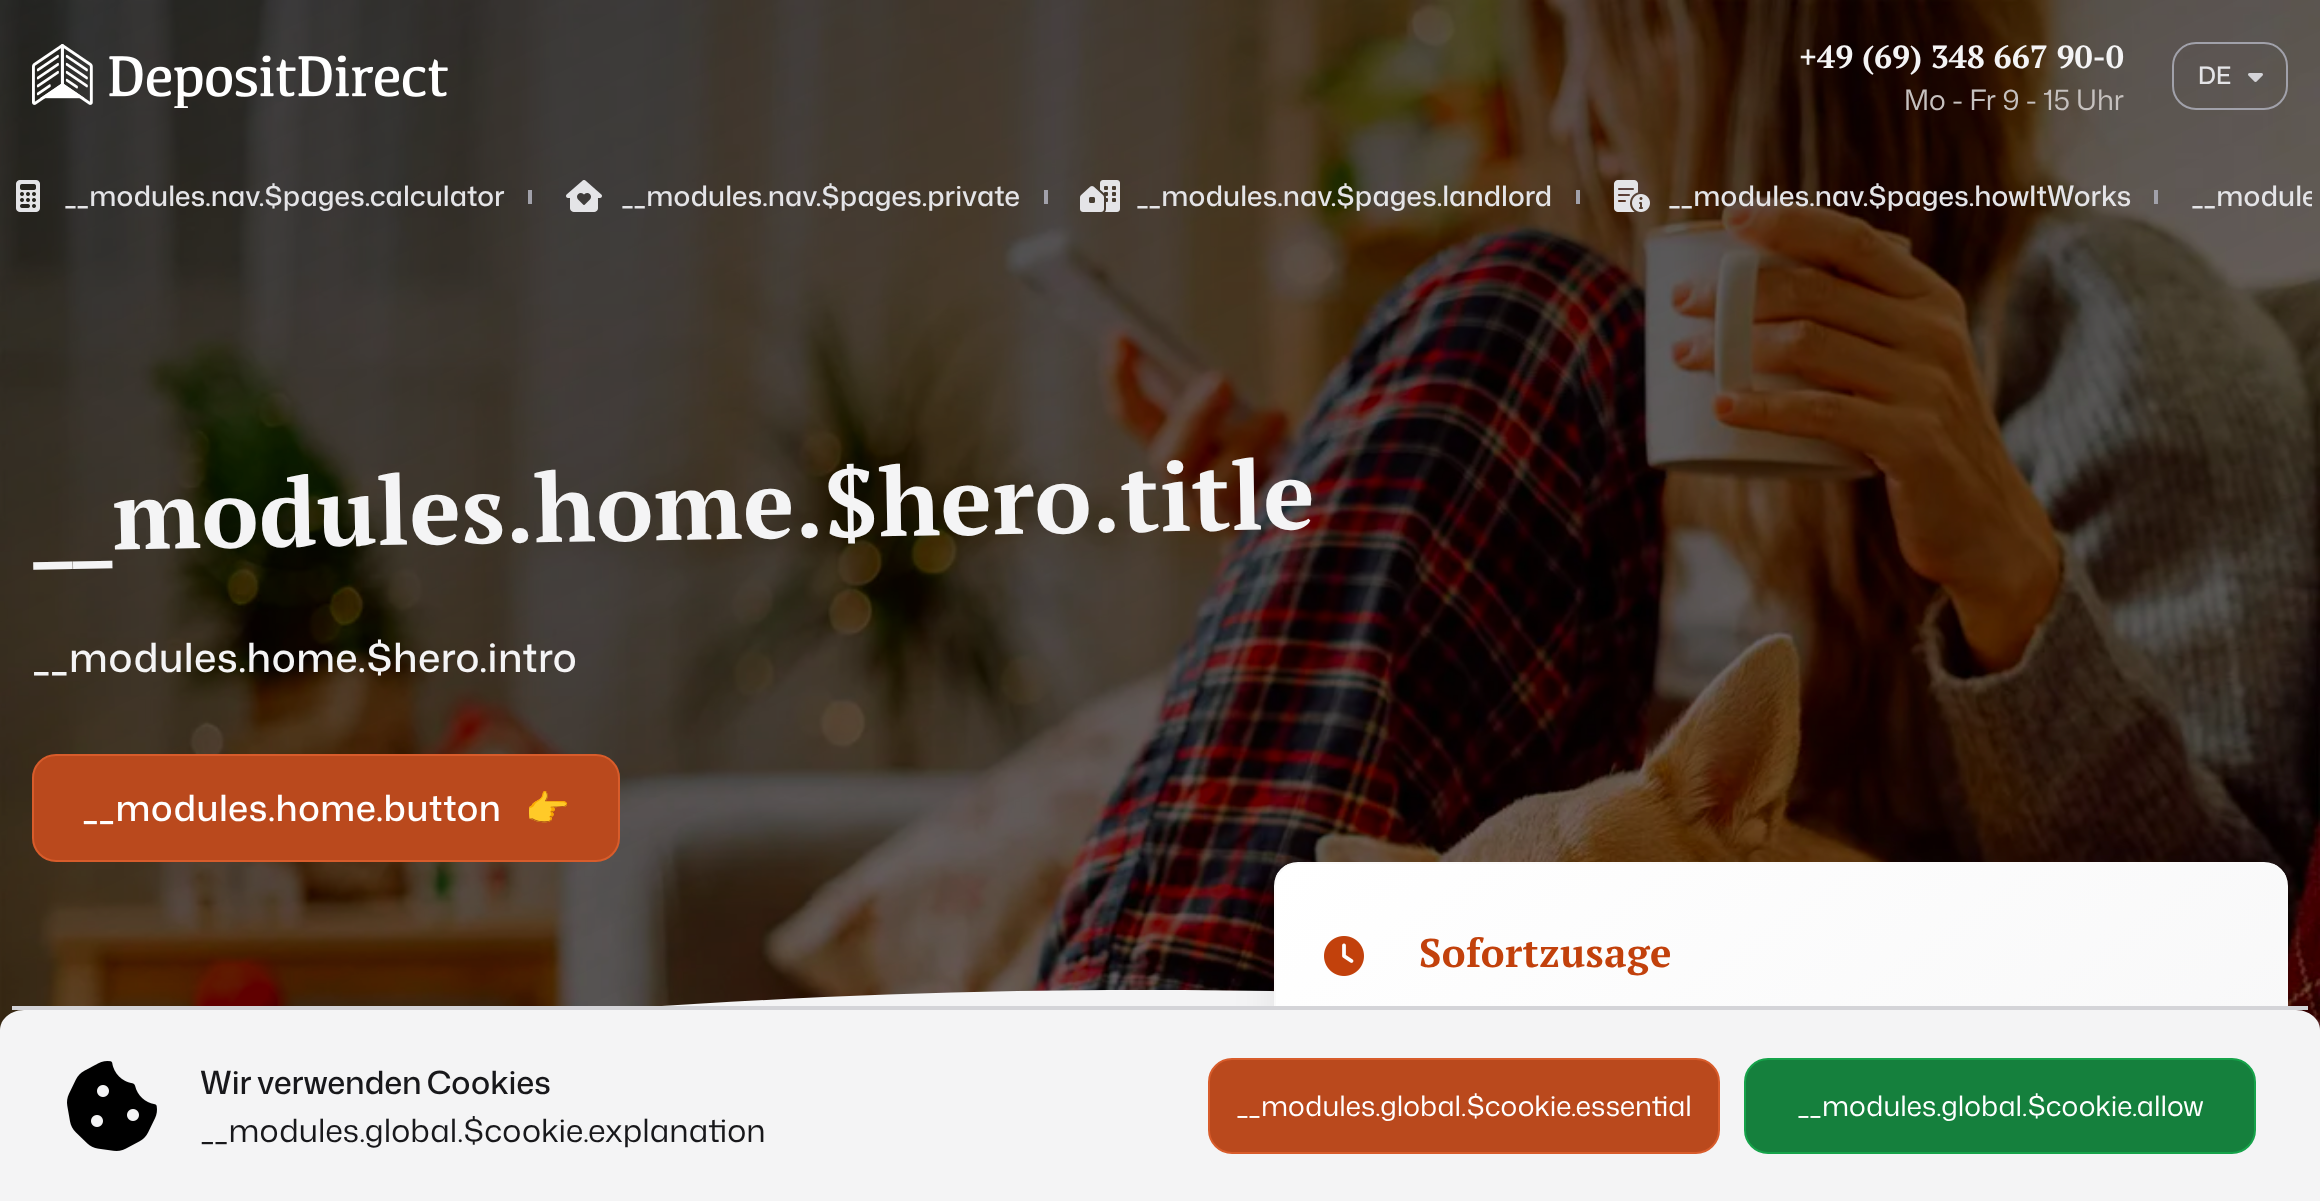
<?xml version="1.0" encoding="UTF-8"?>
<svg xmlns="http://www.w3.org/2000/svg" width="2320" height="1201">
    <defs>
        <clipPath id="clip1"><path d="M 8 152 H 2312 V 216 C 2312 229.5 2301.5 240 2288 240 H 32 C 18.5 240 8 229.5 8 216 Z"/></clipPath>
        <clipPath id="clip2"><rect x="0" y="990" width="2320" height="128"/></clipPath>
        <filter id="blur1" x="-50%" y="-200%" width="200%" height="500%"><feGaussianBlur stdDeviation="25"/></filter>
        <clipPath id="clip3"><rect x="1274" y="862" width="1014" height="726" rx="24"/></clipPath>
        <linearGradient id="g1" gradientUnits="userSpaceOnUse" x1="1439" y1="747" x2="2123" y2="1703"><stop offset="0" stop-color="#FFFFFF"/><stop offset="1" stop-color="#F4F4F5"/></linearGradient>
    </defs>
    <rect width="100%" height="100%" fill="#FFFFFF"/>
    <image x="0" y="0" width="2320" height="1030" href="img_07.png"/>
    <image x="32" y="44" width="416" height="64" href="img_01.png"/>
    <text x="1799" y="68" font-family="PT Serif" font-size="32" font-weight="700" fill="#F4F4F5">+49 (69) 348 667 90-0</text>
    <text x="1904" y="110" font-family="Mona Sans" font-size="28" fill="#C6C1BF">Mo - Fr 9 - 15 Uhr</text>
    <rect x="2173" y="43" width="114" height="66" rx="23" fill="none" stroke="#A1A1AA" stroke-width="2"/>
    <text x="2198" y="84" font-family="Mona Sans" font-size="24" font-weight="500" fill="#E4E4E7">DE</text>
    <image x="2248" y="73" width="15" height="9" href="img_02.png"/>
    <image x="16" y="180" width="24" height="32" href="img_03.png"/>
    <text x="64" y="206" font-family="Mona Sans" font-size="28" font-weight="500" fill="#E4E4E7">__modules.nav.$pages.calculator</text>
    <rect x="528" y="190" width="4" height="14" fill="#A1A1AA"/>
    <image x="566" y="180" width="36" height="32" href="img_04.png"/>
    <text x="621" y="206" font-family="Mona Sans" font-size="28" font-weight="500" fill="#E4E4E7">__modules.nav.$pages.private</text>
    <rect x="1044" y="190" width="4" height="14" fill="#A1A1AA"/>
    <image x="1080" y="180" width="40" height="32" href="img_05.png"/>
    <text x="1136" y="206" font-family="Mona Sans" font-size="28" font-weight="500" fill="#E4E4E7">__modules.nav.$pages.landlord</text>
    <rect x="1576" y="190" width="4" height="14" fill="#A1A1AA"/>
    <image x="1614" y="180" width="36" height="32" href="img_06.png"/>
    <text x="1668" y="206" font-family="Mona Sans" font-size="28" font-weight="500" fill="#E4E4E7">__modules.nav.$pages.howItWorks</text>
    <rect x="2154" y="190" width="4" height="14" fill="#A1A1AA"/>
    <g clip-path="url(#clip1)">
        <text x="2191" y="206" font-family="Mona Sans" font-size="28" font-weight="500" fill="#E4E4E7">__module</text>
    </g>
    <text x="33" y="551" transform="rotate(-1 33 551)" font-family="PT Serif" font-size="96" font-weight="700" letter-spacing="0.5" fill="#F4F4F5">__modules.home.$hero.title</text>
    <text x="32" y="672" font-family="Mona Sans" font-size="40" font-weight="500" letter-spacing="0.5" fill="#F4F4F5">__modules.home.$hero.intro</text>
    <rect x="33" y="755" width="586" height="106" rx="23" fill="#BA491D" stroke="#D85C2B" stroke-width="2"/>
    <text x="82" y="821" font-family="Mona Sans" font-size="36" font-weight="500" letter-spacing="0.5" fill="#FFFFFF">__modules.home.button</text>
    <text x="525" y="821" font-family="Noto Color Emoji" font-size="36" letter-spacing="0.5" fill="#FFFFFF">👉</text>
    <g clip-path="url(#clip2)">
        <path d="M 2320 1092 C 1308 915 530 1009 0 1071 V 1118 H 2320 Z" fill="#F4F4F5"/>
    </g>
    <rect x="1284" y="912" width="994" height="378" rx="14" fill="#000000" fill-opacity="0.1" filter="url(#blur1)"/>
    <g clip-path="url(#clip3)">
        <rect x="1276" y="864" width="1010" height="142" fill="url(#g1)"/>
    </g>
    <rect x="1275" y="863" width="1012" height="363" rx="23" fill="none" stroke="#FAFAFA" stroke-width="2"/>
    <image x="1324" y="936" width="40" height="40" href="img_08.png"/>
    <text x="1419" y="967" font-family="PT Serif" font-size="40" font-weight="700" letter-spacing="0.5" fill="#C2410C">Sofortzusage</text>
    <path d="M 24 1010 H 2296 C 2309 1010 2320 1019 2320 1030 V 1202 H 0 V 1030 C 0 1019 11 1010 24 1010 Z" fill="#F4F4F5"/>
    <rect x="12" y="1006" width="2296" height="4" fill="#D4D4D8"/>
    <image x="67" y="1061" width="90" height="90" href="img_09.png"/>
    <text x="200" y="1094" word-spacing="-2" font-family="Mona Sans" font-size="32" font-weight="500" fill="#18181B">Wir verwenden Cookies</text>
    <text x="200" y="1142" font-family="Mona Sans" font-size="32" fill="#18181B">__modules.global.$cookie.explanation</text>
    <rect x="1209" y="1059" width="510" height="94" rx="23" fill="#BA491D" stroke="#D85C2B" stroke-width="2"/>
    <text x="1236" y="1116" font-family="Mona Sans" font-size="28" fill="#FFFFFF">__modules.global.$cookie.essential</text>
    <rect x="1745" y="1059" width="510" height="94" rx="23" fill="#15803D" stroke="#16A34A" stroke-width="2"/>
    <text x="1797" y="1116" font-family="Mona Sans" font-size="28" fill="#FFFFFF">__modules.global.$cookie.allow</text>
</svg>
